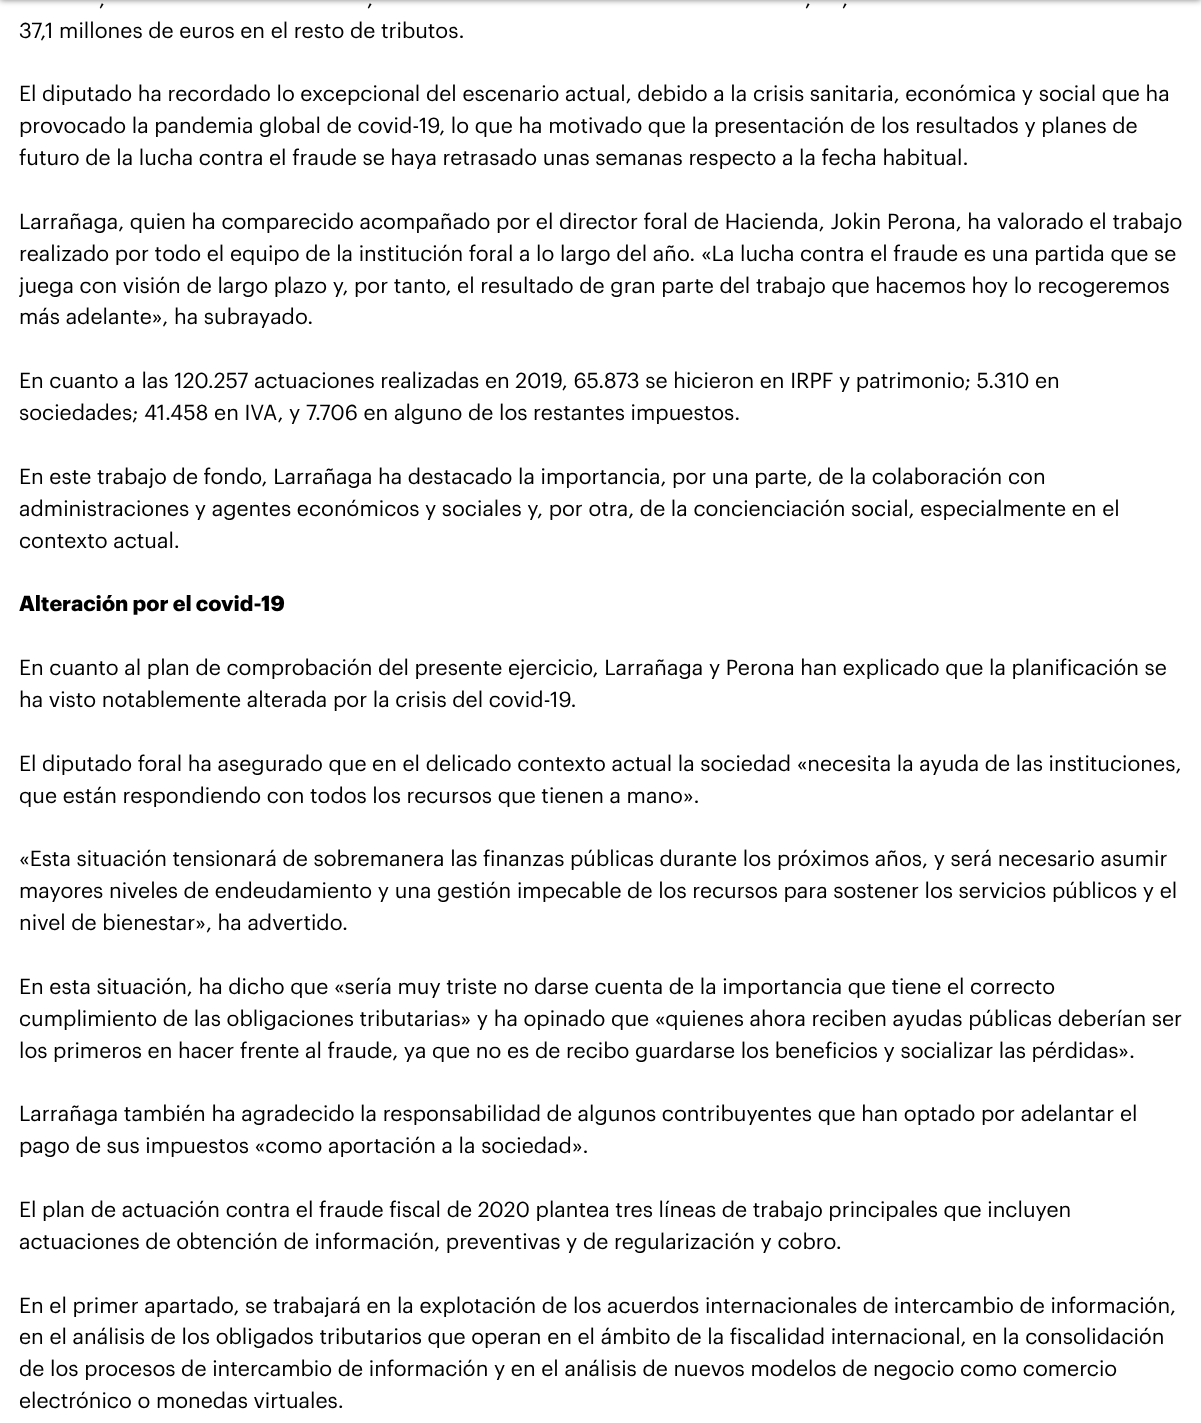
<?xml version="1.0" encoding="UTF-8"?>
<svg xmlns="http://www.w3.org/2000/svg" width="1201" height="1423">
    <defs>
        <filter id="blur1" x="-50%" y="-200%" width="200%" height="500%"><feGaussianBlur stdDeviation="3"/></filter>
    </defs>
    <rect width="100%" height="100%" fill="#FFFFFF"/>
    <rect x="0" y="-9" width="1201" height="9" fill="#000000" fill-opacity="0.5" filter="url(#blur1)"/>
    <text x="99" y="6" font-family="Graphik" font-size="21.25" fill="#000000">,</text>
    <text x="367" y="6" font-family="Graphik" font-size="21.25" fill="#000000">,</text>
    <text x="805" y="6" font-family="Graphik" font-size="21.25" fill="#000000">,</text>
    <text x="842" y="6" font-family="Graphik" font-size="21.25" fill="#000000">,</text>
    <text x="19" y="38" font-family="Graphik" font-size="21.25" fill="#000000">37,1 millones de euros en el resto de tributos.</text>
    <text font-family="Graphik" font-size="21.25" fill="#000000">
        <tspan x="19" y="101">El diputado ha recordado lo excepcional del escenario actual, debido a la crisis sanitaria, económica y social que ha</tspan>
        <tspan x="19" y="133">provocado la pandemia global de covid-19, lo que ha motivado que la presentación de los resultados y planes de</tspan>
        <tspan x="19" y="165">futuro de la lucha contra el fraude se haya retrasado unas semanas respecto a la fecha habitual.</tspan>
    </text>
    <text font-family="Graphik" font-size="21.25" fill="#000000">
        <tspan x="19" y="229">Larrañaga, quien ha comparecido acompañado por el director foral de Hacienda, Jokin Perona, ha valorado el trabajo</tspan>
        <tspan x="19" y="261">realizado por todo el equipo de la institución foral a lo largo del año. «La lucha contra el fraude es una partida que se</tspan>
        <tspan x="19" y="293">juega con visión de largo plazo y, por tanto, el resultado de gran parte del trabajo que hacemos hoy lo recogeremos</tspan>
        <tspan x="19" y="324">más adelante», ha subrayado.</tspan>
    </text>
    <text font-family="Graphik" font-size="21.25" fill="#000000">
        <tspan x="19" y="388">En cuanto a las 120.257 actuaciones realizadas en 2019, 65.873 se hicieron en IRPF y patrimonio; 5.310 en</tspan>
        <tspan x="19" y="420">sociedades; 41.458 en IVA, y 7.706 en alguno de los restantes impuestos.</tspan>
    </text>
    <text font-family="Graphik" font-size="21.25" fill="#000000">
        <tspan x="19" y="484">En este trabajo de fondo, Larrañaga ha destacado la importancia, por una parte, de la colaboración con</tspan>
        <tspan x="19" y="516">administraciones y agentes económicos y sociales y, por otra, de la concienciación social, especialmente en el</tspan>
        <tspan x="19" y="548">contexto actual.</tspan>
    </text>
    <text x="19" y="611" font-family="Graphik" font-size="21.25" font-weight="700" fill="#000000">Alteración por el covid-19</text>
    <text font-family="Graphik" font-size="21.25" fill="#000000">
        <tspan x="19" y="675">En cuanto al plan de comprobación del presente ejercicio, Larrañaga y Perona han explicado que la planificación se</tspan>
        <tspan x="19" y="707">ha visto notablemente alterada por la crisis del covid-19.</tspan>
    </text>
    <text font-family="Graphik" font-size="21.25" fill="#000000">
        <tspan x="19" y="771">El diputado foral ha asegurado que en el delicado contexto actual la sociedad «necesita la ayuda de las instituciones,</tspan>
        <tspan x="19" y="803">que están respondiendo con todos los recursos que tienen a mano».</tspan>
    </text>
    <text font-family="Graphik" font-size="21.25" fill="#000000">
        <tspan x="19" y="866">«Esta situación tensionará de sobremanera las finanzas públicas durante los próximos años, y será necesario asumir</tspan>
        <tspan x="19" y="898">mayores niveles de endeudamiento y una gestión impecable de los recursos para sostener los servicios públicos y el</tspan>
        <tspan x="19" y="930">nivel de bienestar», ha advertido.</tspan>
    </text>
    <text font-family="Graphik" font-size="21.25" fill="#000000">
        <tspan x="19" y="994">En esta situación, ha dicho que «sería muy triste no darse cuenta de la importancia que tiene el correcto</tspan>
        <tspan x="19" y="1026">cumplimiento de las obligaciones tributarias» y ha opinado que «quienes ahora reciben ayudas públicas deberían ser</tspan>
        <tspan x="19" y="1058">los primeros en hacer frente al fraude, ya que no es de recibo guardarse los beneficios y socializar las pérdidas».</tspan>
    </text>
    <text font-family="Graphik" font-size="21.25" fill="#000000">
        <tspan x="19" y="1121">Larrañaga también ha agradecido la responsabilidad de algunos contribuyentes que han optado por adelantar el</tspan>
        <tspan x="19" y="1153">pago de sus impuestos «como aportación a la sociedad».</tspan>
    </text>
    <text font-family="Graphik" font-size="21.25" fill="#000000">
        <tspan x="19" y="1217">El plan de actuación contra el fraude fiscal de 2020 plantea tres líneas de trabajo principales que incluyen</tspan>
        <tspan x="19" y="1249">actuaciones de obtención de información, preventivas y de regularización y cobro.</tspan>
    </text>
    <text font-family="Graphik" font-size="21.25" fill="#000000">
        <tspan x="19" y="1313">En el primer apartado, se trabajará en la explotación de los acuerdos internacionales de intercambio de información,</tspan>
        <tspan x="19" y="1344">en el análisis de los obligados tributarios que operan en el ámbito de la fiscalidad internacional, en la consolidación</tspan>
        <tspan x="19" y="1376">de los procesos de intercambio de información y en el análisis de nuevos modelos de negocio como comercio</tspan>
        <tspan x="19" y="1408">electrónico o monedas virtuales.</tspan>
    </text>
</svg>
